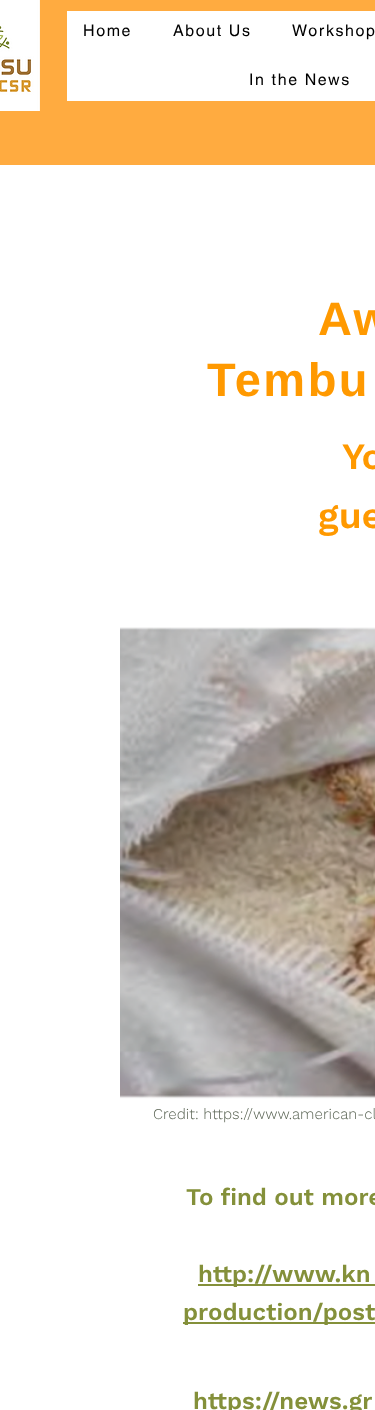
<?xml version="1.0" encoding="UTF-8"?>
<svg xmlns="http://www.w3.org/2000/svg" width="375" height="1410">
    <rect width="100%" height="100%" fill="#FFFFFF"/>
    <rect x="0" y="0" width="375" height="165" fill="#FFAB40"/>
    <image x="0" y="0" width="40" height="111" href="img_01.png"/>
    <rect x="67" y="11" width="308" height="90" fill="#FFFFFF"/>
    <text x="83" y="36" font-family="helvetica" font-size="16" letter-spacing="1.6" fill="#000000">Home</text>
    <text x="173" y="36" font-family="helvetica" font-size="16" letter-spacing="1.6" fill="#000000">About Us</text>
    <text x="292" y="36" font-family="helvetica" font-size="16" letter-spacing="1.6" fill="#000000">Workshop</text>
    <text x="249" y="85" font-family="helvetica" font-size="16" letter-spacing="1.6" fill="#000000">In the News</text>
    <text x="318" y="335" font-family="Liberation Sans" font-size="47" font-weight="700" letter-spacing="2.5" fill="#FF9900">Aw</text>
    <text x="207" y="396" font-family="Liberation Sans" font-size="47" font-weight="700" letter-spacing="2.5" fill="#FF9900">Tembu</text>
    <text x="342" y="469" font-family="Work Sans" font-size="37" font-weight="600" fill="#FF9900">Yo</text>
    <text x="318" y="528" font-family="Work Sans" font-size="37" font-weight="600" fill="#FF9900">gue</text>
    <image x="120" y="627" width="255" height="472" href="img_02.png"/>
    <text x="153" y="1119" font-family="Work Sans" font-size="15" font-weight="300" fill="#5B6555">Credit: https://www.american-cl</text>
    <text x="186" y="1205" font-family="Work Sans" font-size="24" font-weight="600" fill="#84903A">To find out more</text>
    <rect x="198" y="1284" width="177" height="2" fill="#84903A"/>
    <text x="198" y="1282" font-family="Work Sans" font-size="24" font-weight="600" fill="#84903A">http://www.kn</text>
    <rect x="183" y="1322" width="192" height="2" fill="#84903A"/>
    <text x="183" y="1320" font-family="Work Sans" font-size="24" font-weight="600" fill="#84903A">production/post</text>
    <text x="193" y="1409" font-family="Work Sans" font-size="24" font-weight="600" fill="#84903A">https://news.gr</text>
</svg>
